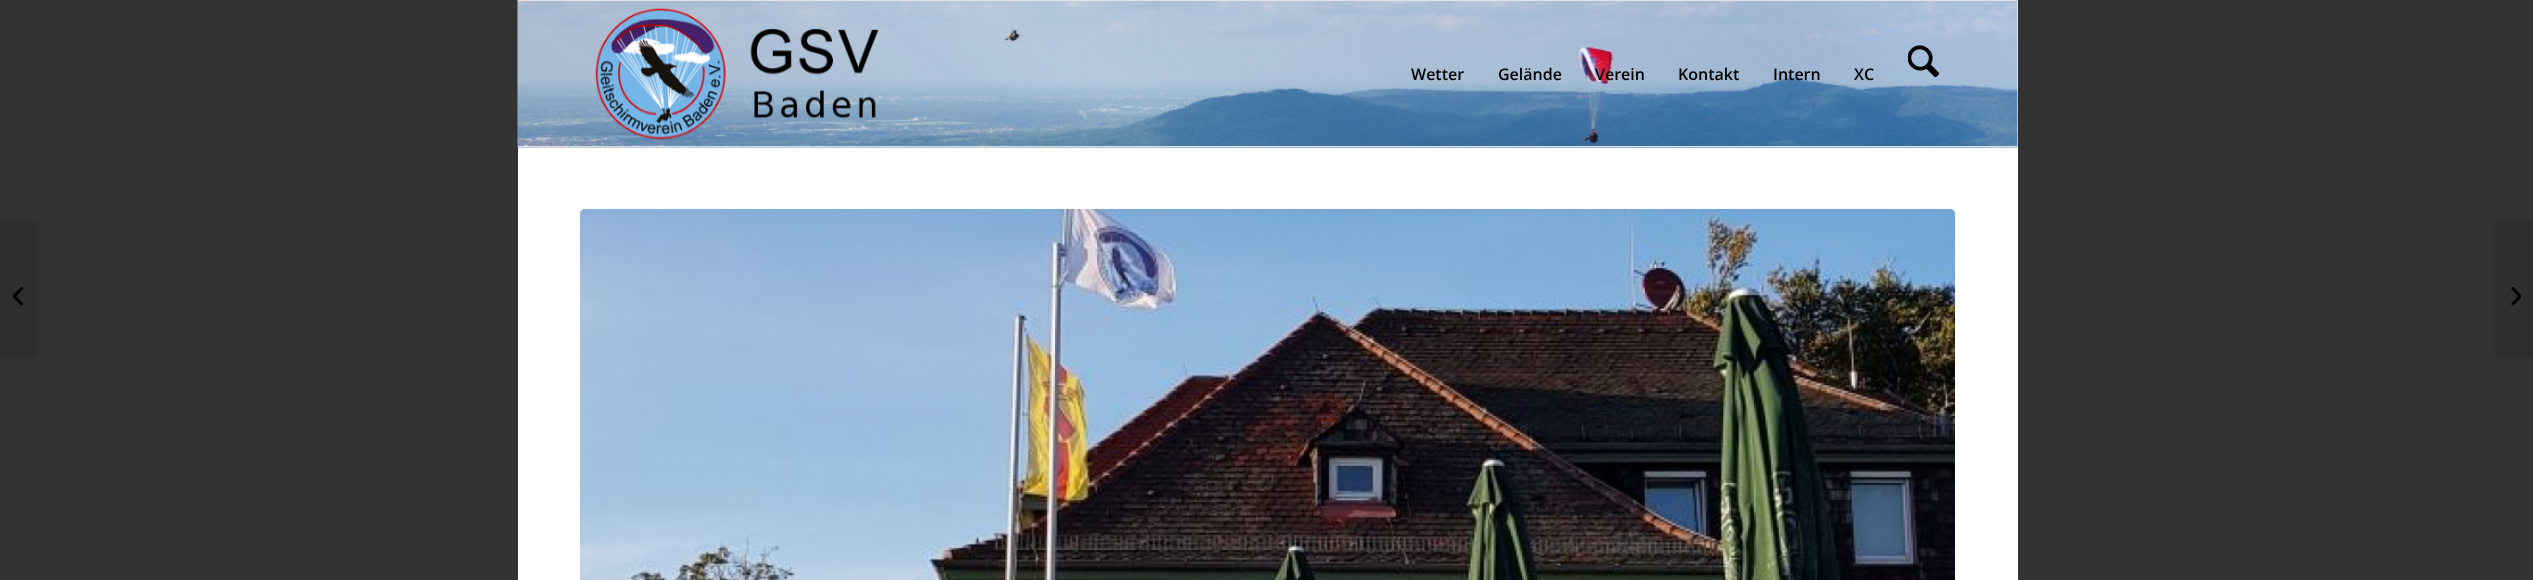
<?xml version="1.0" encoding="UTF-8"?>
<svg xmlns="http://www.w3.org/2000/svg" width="2533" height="580">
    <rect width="100%" height="100%" fill="#333333"/>
    <rect x="518" y="1" width="1500" height="579" fill="#FFFFFF"/>
    <image x="580" y="208" width="1375" height="372" href="img_01.png"/>
    <image x="517" y="0" width="1501" height="148" href="img_02.png"/>
    <rect x="518" y="0" width="1500" height="1" fill="#E1E1E1"/>
    <rect x="518" y="146" width="1500" height="1" fill="#E1E1E1"/>
    <image x="595" y="8" width="284" height="132" href="img_03.png"/>
    <text x="1411" y="80" font-family="Open Sans" font-size="16" font-weight="600" fill="#000000">Wetter</text>
    <text x="1498" y="80" font-family="Open Sans" font-size="16" font-weight="600" fill="#000000">Gelände</text>
    <text x="1595" y="80" font-family="Open Sans" font-size="16" font-weight="600" fill="#000000">Verein</text>
    <text x="1678" y="80" font-family="Open Sans" font-size="16" font-weight="600" fill="#000000">Kontakt</text>
    <text x="1773" y="80" font-family="Open Sans" font-size="16" font-weight="600" fill="#000000">Intern</text>
    <text x="1854" y="80" font-family="Open Sans" font-size="16" font-weight="600" fill="#000000">XC</text>
    <image x="1908" y="45" width="31" height="33" href="img_04.png"/>
    <path d="M 0 221 H 34 C 37 221 39 223 39 226 V 354 C 39 357 37 359 34 359 H 0 Z" fill="#2E2E2E"/>
    <image x="13" y="287" width="10" height="19" href="img_05.png"/>
    <path d="M 2500 221 H 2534 V 359 H 2500 C 2497 359 2495 357 2495 354 V 226 C 2495 223 2497 221 2500 221 Z" fill="#2E2E2E"/>
    <image x="2511" y="287" width="10" height="19" href="img_06.png"/>
</svg>
